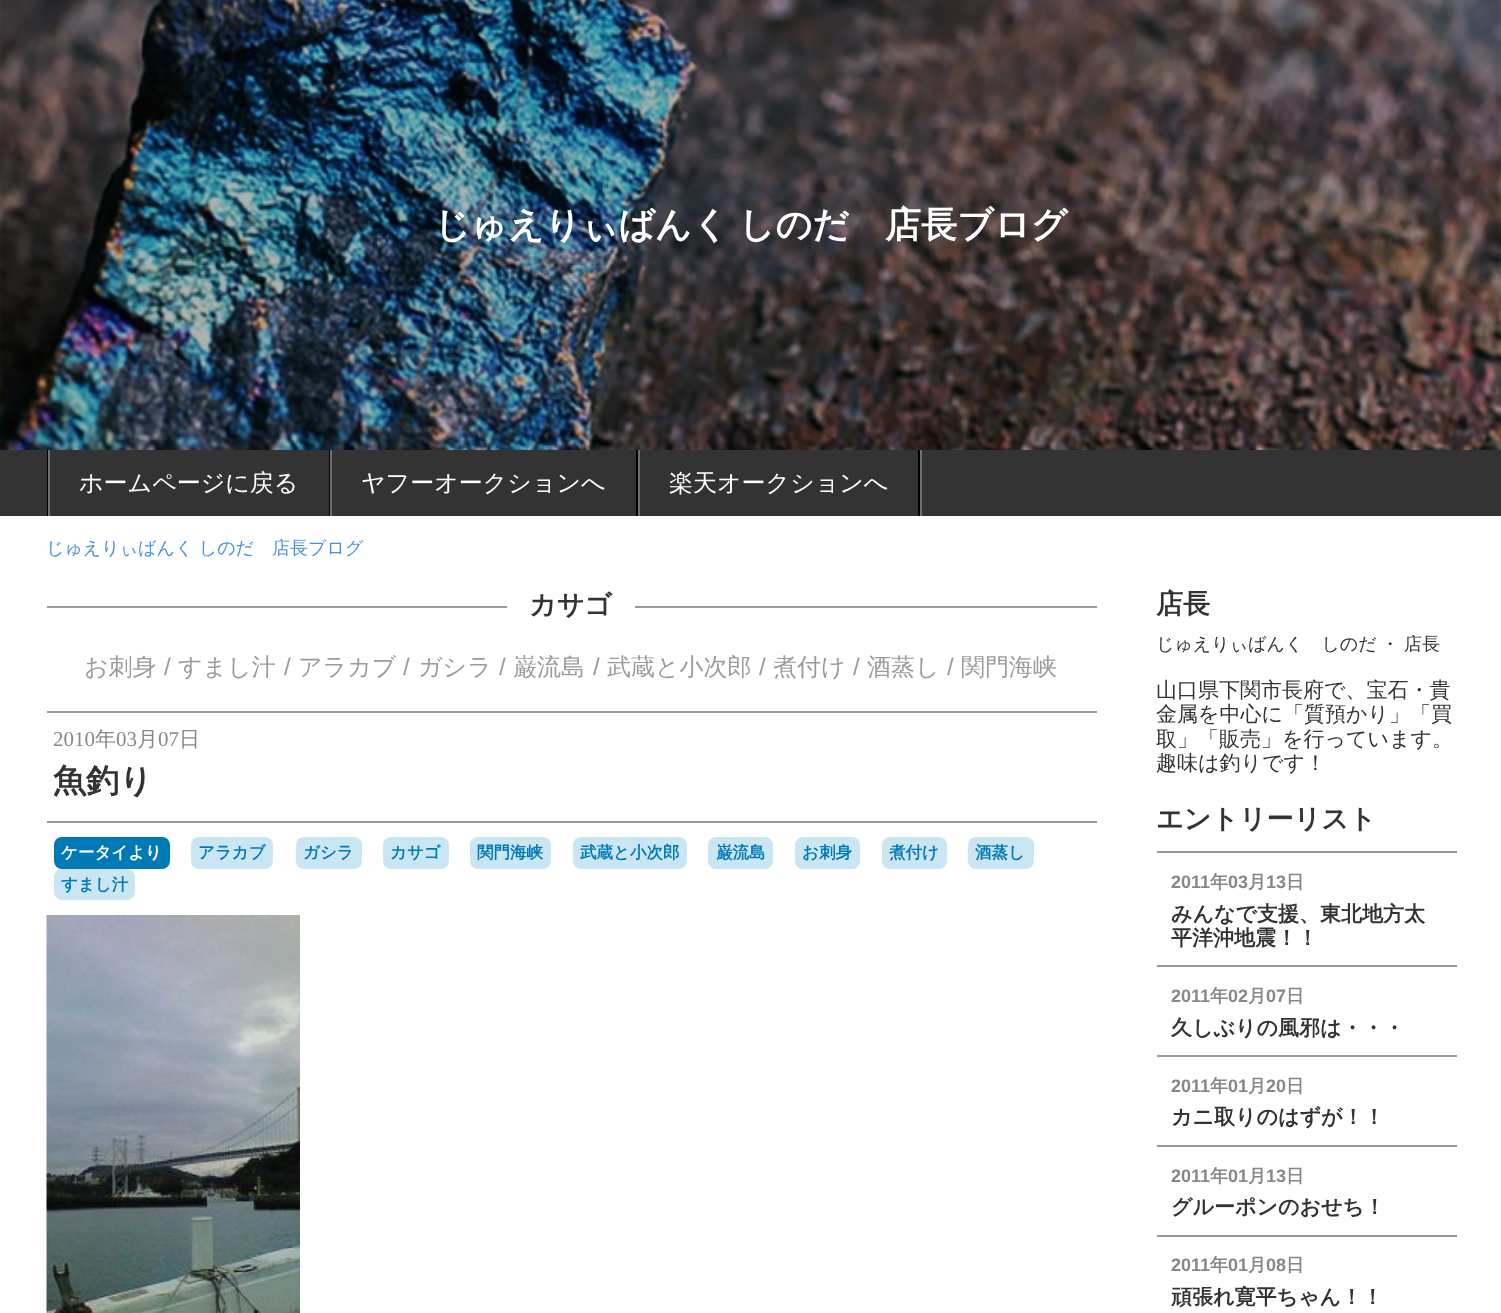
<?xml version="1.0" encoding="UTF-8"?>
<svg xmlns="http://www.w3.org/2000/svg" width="1501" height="1313">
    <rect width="100%" height="100%" fill="#FFFFFF"/>
    <image x="0" y="0" width="1501" height="450" href="img_01.png"/>
    <text x="434" y="237" word-spacing="-1" font-family="WenQuanYi Zen Hei" font-size="36" font-weight="700" fill="#FFFFFF">じゅえりぃばんく しのだ　店長ブログ</text>
    <rect x="0" y="450" width="1501" height="66" fill="#333333"/>
    <rect x="47" y="450" width="1" height="66" fill="#000000"/>
    <rect x="48" y="450" width="2" height="66" fill="#706F70"/>
    <text x="79" y="491" font-family="WenQuanYi Zen Hei" font-size="24" font-weight="500" fill="#FFFFFF">ホームページに戻る</text>
    <rect x="329" y="450" width="1" height="66" fill="#000000"/>
    <rect x="330" y="450" width="2" height="66" fill="#706F70"/>
    <text x="361" y="491" font-family="WenQuanYi Zen Hei" font-size="24" font-weight="500" fill="#FFFFFF">ヤフーオークションへ</text>
    <rect x="920" y="450" width="2" height="66" fill="#706F70"/>
    <rect x="636" y="450" width="2" height="66" fill="#000000"/>
    <rect x="918" y="450" width="2" height="66" fill="#000000"/>
    <rect x="638" y="450" width="2" height="66" fill="#706F70"/>
    <text x="669" y="491" font-family="WenQuanYi Zen Hei" font-size="24" font-weight="500" fill="#FFFFFF">楽天オークションへ</text>
    <text x="46" y="554" font-family="WenQuanYi Zen Hei" font-size="18" font-weight="500" fill="#4A90E2">じゅえりぃばんく しのだ　店長ブログ</text>
    <rect x="47" y="606" width="1050" height="2" fill="#9B9B9B"/>
    <rect x="507" y="606" width="128" height="2" fill="#FFFFFF"/>
    <text x="529" y="614" font-family="WenQuanYi Zen Hei" font-size="27" font-weight="700" fill="#333333">カサゴ</text>
    <text x="84" y="675" font-family="WenQuanYi Zen Hei" font-size="24" font-weight="500" fill="#9B9B9B">お刺身</text>
    <text x="164" y="675" font-family="Liberation Sans" font-size="24" fill="#9B9B9B">/</text>
    <text x="178" y="675" font-family="WenQuanYi Zen Hei" font-size="24" font-weight="500" fill="#9B9B9B">すまし汁</text>
    <text x="284" y="675" font-family="Liberation Sans" font-size="24" fill="#9B9B9B">/</text>
    <text x="298" y="675" font-family="WenQuanYi Zen Hei" font-size="24" font-weight="500" fill="#9B9B9B">アラカブ</text>
    <text x="403" y="675" font-family="Liberation Sans" font-size="24" fill="#9B9B9B">/</text>
    <text x="418" y="675" font-family="WenQuanYi Zen Hei" font-size="24" font-weight="500" fill="#9B9B9B">ガシラ</text>
    <text x="499" y="675" font-family="Liberation Sans" font-size="24" fill="#9B9B9B">/</text>
    <text x="513" y="675" font-family="WenQuanYi Zen Hei" font-size="24" font-weight="500" fill="#9B9B9B">巌流島</text>
    <text x="593" y="675" font-family="Liberation Sans" font-size="24" fill="#9B9B9B">/</text>
    <text x="607" y="675" font-family="WenQuanYi Zen Hei" font-size="24" font-weight="500" fill="#9B9B9B">武蔵と小次郎</text>
    <text x="759" y="675" font-family="Liberation Sans" font-size="24" fill="#9B9B9B">/</text>
    <text x="773" y="675" font-family="WenQuanYi Zen Hei" font-size="24" font-weight="500" fill="#9B9B9B">煮付け</text>
    <text x="853" y="675" font-family="Liberation Sans" font-size="24" fill="#9B9B9B">/</text>
    <text x="867" y="675" font-family="WenQuanYi Zen Hei" font-size="24" font-weight="500" fill="#9B9B9B">酒蒸し</text>
    <text x="947" y="675" font-family="Liberation Sans" font-size="24" fill="#9B9B9B">/</text>
    <text x="961" y="675" font-family="WenQuanYi Zen Hei" font-size="24" font-weight="500" fill="#9B9B9B">関門海峡</text>
    <rect x="47" y="711" width="1050" height="2" fill="#9B9B9B"/>
    <rect x="47" y="821" width="1050" height="2" fill="#9B9B9B"/>
    <text x="53" y="746" font-family="Liberation Serif" font-size="21" fill="#888888">2010</text>
    <text x="95" y="746" font-family="WenQuanYi Zen Hei" font-size="21" font-weight="500" fill="#888888">年</text>
    <text x="116" y="746" font-family="Liberation Serif" font-size="21" fill="#888888">03</text>
    <text x="137" y="746" font-family="WenQuanYi Zen Hei" font-size="21" font-weight="500" fill="#888888">月</text>
    <text x="158" y="746" font-family="Liberation Serif" font-size="21" fill="#888888">07</text>
    <text x="179" y="746" font-family="WenQuanYi Zen Hei" font-size="21" font-weight="500" fill="#888888">日</text>
    <text x="53" y="792" font-family="WenQuanYi Zen Hei" font-size="33" font-weight="700" fill="#333333">魚釣り</text>
    <rect x="54" y="837" width="116" height="32" rx="8" fill="#007AB7"/>
    <text x="61" y="858" font-family="WenQuanYi Zen Hei" font-size="16.5" font-weight="700" fill="#FFFFFF">ケータイより</text>
    <rect x="191" y="837" width="82" height="32" rx="8" fill="#CBE6F3"/>
    <text x="198" y="858" font-family="WenQuanYi Zen Hei" font-size="16.5" font-weight="700" fill="#007AB7">アラカブ</text>
    <rect x="296" y="837" width="66" height="32" rx="8" fill="#CBE6F3"/>
    <text x="303" y="858" font-family="WenQuanYi Zen Hei" font-size="16.5" font-weight="700" fill="#007AB7">ガシラ</text>
    <rect x="383" y="837" width="66" height="32" rx="8" fill="#CBE6F3"/>
    <text x="390" y="858" font-family="WenQuanYi Zen Hei" font-size="16.5" font-weight="700" fill="#007AB7">カサゴ</text>
    <rect x="470" y="837" width="81" height="32" rx="8" fill="#CBE6F3"/>
    <text x="477" y="858" font-family="WenQuanYi Zen Hei" font-size="16.5" font-weight="700" fill="#007AB7">関門海峡</text>
    <rect x="573" y="837" width="114" height="32" rx="8" fill="#CBE6F3"/>
    <text x="580" y="858" font-family="WenQuanYi Zen Hei" font-size="16.5" font-weight="700" fill="#007AB7">武蔵と小次郎</text>
    <rect x="708" y="837" width="65" height="32" rx="8" fill="#CBE6F3"/>
    <text x="716" y="858" font-family="WenQuanYi Zen Hei" font-size="16.5" font-weight="700" fill="#007AB7">巌流島</text>
    <rect x="795" y="837" width="65" height="32" rx="8" fill="#CBE6F3"/>
    <text x="802" y="858" font-family="WenQuanYi Zen Hei" font-size="16.5" font-weight="700" fill="#007AB7">お刺身</text>
    <rect x="882" y="837" width="65" height="32" rx="8" fill="#CBE6F3"/>
    <text x="889" y="858" font-family="WenQuanYi Zen Hei" font-size="16.5" font-weight="700" fill="#007AB7">煮付け</text>
    <rect x="968" y="837" width="66" height="32" rx="8" fill="#CBE6F3"/>
    <text x="975" y="858" font-family="WenQuanYi Zen Hei" font-size="16.5" font-weight="700" fill="#007AB7">酒蒸し</text>
    <rect x="54" y="869" width="81" height="31" rx="8" fill="#CBE6F3"/>
    <text x="61" y="890" font-family="WenQuanYi Zen Hei" font-size="16.5" font-weight="700" fill="#007AB7">すまし汁</text>
    <image x="46" y="915" width="254" height="398" href="img_02.png"/>
    <text x="1156" y="613" font-family="WenQuanYi Zen Hei" font-size="27" font-weight="700" fill="#333333">店長</text>
    <text x="1156" y="650" font-family="WenQuanYi Zen Hei" font-size="18" font-weight="500" fill="#333333">じゅえりぃばんく　しのだ</text>
    <text x="1381" y="650" font-family="WenQuanYi Zen Hei" font-size="18" font-weight="500" fill="#333333">・</text>
    <text x="1404" y="650" font-family="WenQuanYi Zen Hei" font-size="18" font-weight="500" fill="#333333">店長</text>
    <text font-family="WenQuanYi Zen Hei" font-size="21" font-weight="500" fill="#333333">
        <tspan x="1156" y="697">山口県下関市長府で、宝石・貴</tspan>
        <tspan x="1156" y="721">金属を中心に「質預かり」「買</tspan>
        <tspan x="1156" y="746">取」「販売」を行っています。</tspan>
        <tspan x="1156" y="770">趣味は釣りです！</tspan>
    </text>
    <text x="1156" y="828" font-family="WenQuanYi Zen Hei" font-size="27" font-weight="700" fill="#333333">エントリーリスト</text>
    <rect x="1157" y="851" width="300" height="2" fill="#979797"/>
    <rect x="1157" y="965" width="300" height="2" fill="#979797"/>
    <text x="1171" y="888" font-family="Liberation Sans" font-size="18" font-weight="700" fill="#888888">2011</text>
    <text x="1210" y="888" font-family="WenQuanYi Zen Hei" font-size="18" font-weight="700" fill="#888888">年</text>
    <text x="1228" y="888" font-family="Liberation Sans" font-size="18" font-weight="700" fill="#888888">03</text>
    <text x="1248" y="888" font-family="WenQuanYi Zen Hei" font-size="18" font-weight="700" fill="#888888">月</text>
    <text x="1266" y="888" font-family="Liberation Sans" font-size="18" font-weight="700" fill="#888888">13</text>
    <text x="1286" y="888" font-family="WenQuanYi Zen Hei" font-size="18" font-weight="700" fill="#888888">日</text>
    <text font-family="WenQuanYi Zen Hei" font-size="21" font-weight="700" fill="#333333">
        <tspan x="1171" y="921">みんなで支援、東北地方太</tspan>
        <tspan x="1171" y="945">平洋沖地震！！</tspan>
    </text>
    <rect x="1157" y="1055" width="300" height="2" fill="#979797"/>
    <text x="1171" y="1002" font-family="Liberation Sans" font-size="18" font-weight="700" fill="#888888">2011</text>
    <text x="1210" y="1002" font-family="WenQuanYi Zen Hei" font-size="18" font-weight="700" fill="#888888">年</text>
    <text x="1228" y="1002" font-family="Liberation Sans" font-size="18" font-weight="700" fill="#888888">02</text>
    <text x="1248" y="1002" font-family="WenQuanYi Zen Hei" font-size="18" font-weight="700" fill="#888888">月</text>
    <text x="1266" y="1002" font-family="Liberation Sans" font-size="18" font-weight="700" fill="#888888">07</text>
    <text x="1286" y="1002" font-family="WenQuanYi Zen Hei" font-size="18" font-weight="700" fill="#888888">日</text>
    <text x="1171" y="1035" font-family="WenQuanYi Zen Hei" font-size="21" font-weight="700" fill="#333333">久しぶりの風邪は・・・</text>
    <rect x="1157" y="1145" width="300" height="2" fill="#979797"/>
    <text x="1171" y="1092" font-family="Liberation Sans" font-size="18" font-weight="700" fill="#888888">2011</text>
    <text x="1210" y="1092" font-family="WenQuanYi Zen Hei" font-size="18" font-weight="700" fill="#888888">年</text>
    <text x="1228" y="1092" font-family="Liberation Sans" font-size="18" font-weight="700" fill="#888888">01</text>
    <text x="1248" y="1092" font-family="WenQuanYi Zen Hei" font-size="18" font-weight="700" fill="#888888">月</text>
    <text x="1266" y="1092" font-family="Liberation Sans" font-size="18" font-weight="700" fill="#888888">20</text>
    <text x="1286" y="1092" font-family="WenQuanYi Zen Hei" font-size="18" font-weight="700" fill="#888888">日</text>
    <text x="1171" y="1124" font-family="WenQuanYi Zen Hei" font-size="21" font-weight="700" fill="#333333">カニ取りのはずが！！</text>
    <rect x="1157" y="1235" width="300" height="2" fill="#979797"/>
    <text x="1171" y="1182" font-family="Liberation Sans" font-size="18" font-weight="700" fill="#888888">2011</text>
    <text x="1210" y="1182" font-family="WenQuanYi Zen Hei" font-size="18" font-weight="700" fill="#888888">年</text>
    <text x="1228" y="1182" font-family="Liberation Sans" font-size="18" font-weight="700" fill="#888888">01</text>
    <text x="1248" y="1182" font-family="WenQuanYi Zen Hei" font-size="18" font-weight="700" fill="#888888">月</text>
    <text x="1266" y="1182" font-family="Liberation Sans" font-size="18" font-weight="700" fill="#888888">13</text>
    <text x="1286" y="1182" font-family="WenQuanYi Zen Hei" font-size="18" font-weight="700" fill="#888888">日</text>
    <text x="1171" y="1214" font-family="WenQuanYi Zen Hei" font-size="21" font-weight="700" fill="#333333">グルーポンのおせち！</text>
    <text x="1171" y="1271" font-family="Liberation Sans" font-size="18" font-weight="700" fill="#888888">2011</text>
    <text x="1210" y="1271" font-family="WenQuanYi Zen Hei" font-size="18" font-weight="700" fill="#888888">年</text>
    <text x="1228" y="1271" font-family="Liberation Sans" font-size="18" font-weight="700" fill="#888888">01</text>
    <text x="1248" y="1271" font-family="WenQuanYi Zen Hei" font-size="18" font-weight="700" fill="#888888">月</text>
    <text x="1266" y="1271" font-family="Liberation Sans" font-size="18" font-weight="700" fill="#888888">08</text>
    <text x="1286" y="1271" font-family="WenQuanYi Zen Hei" font-size="18" font-weight="700" fill="#888888">日</text>
    <text x="1171" y="1304" font-family="WenQuanYi Zen Hei" font-size="21" font-weight="700" fill="#333333">頑張れ寛平ちゃん！！</text>
</svg>
